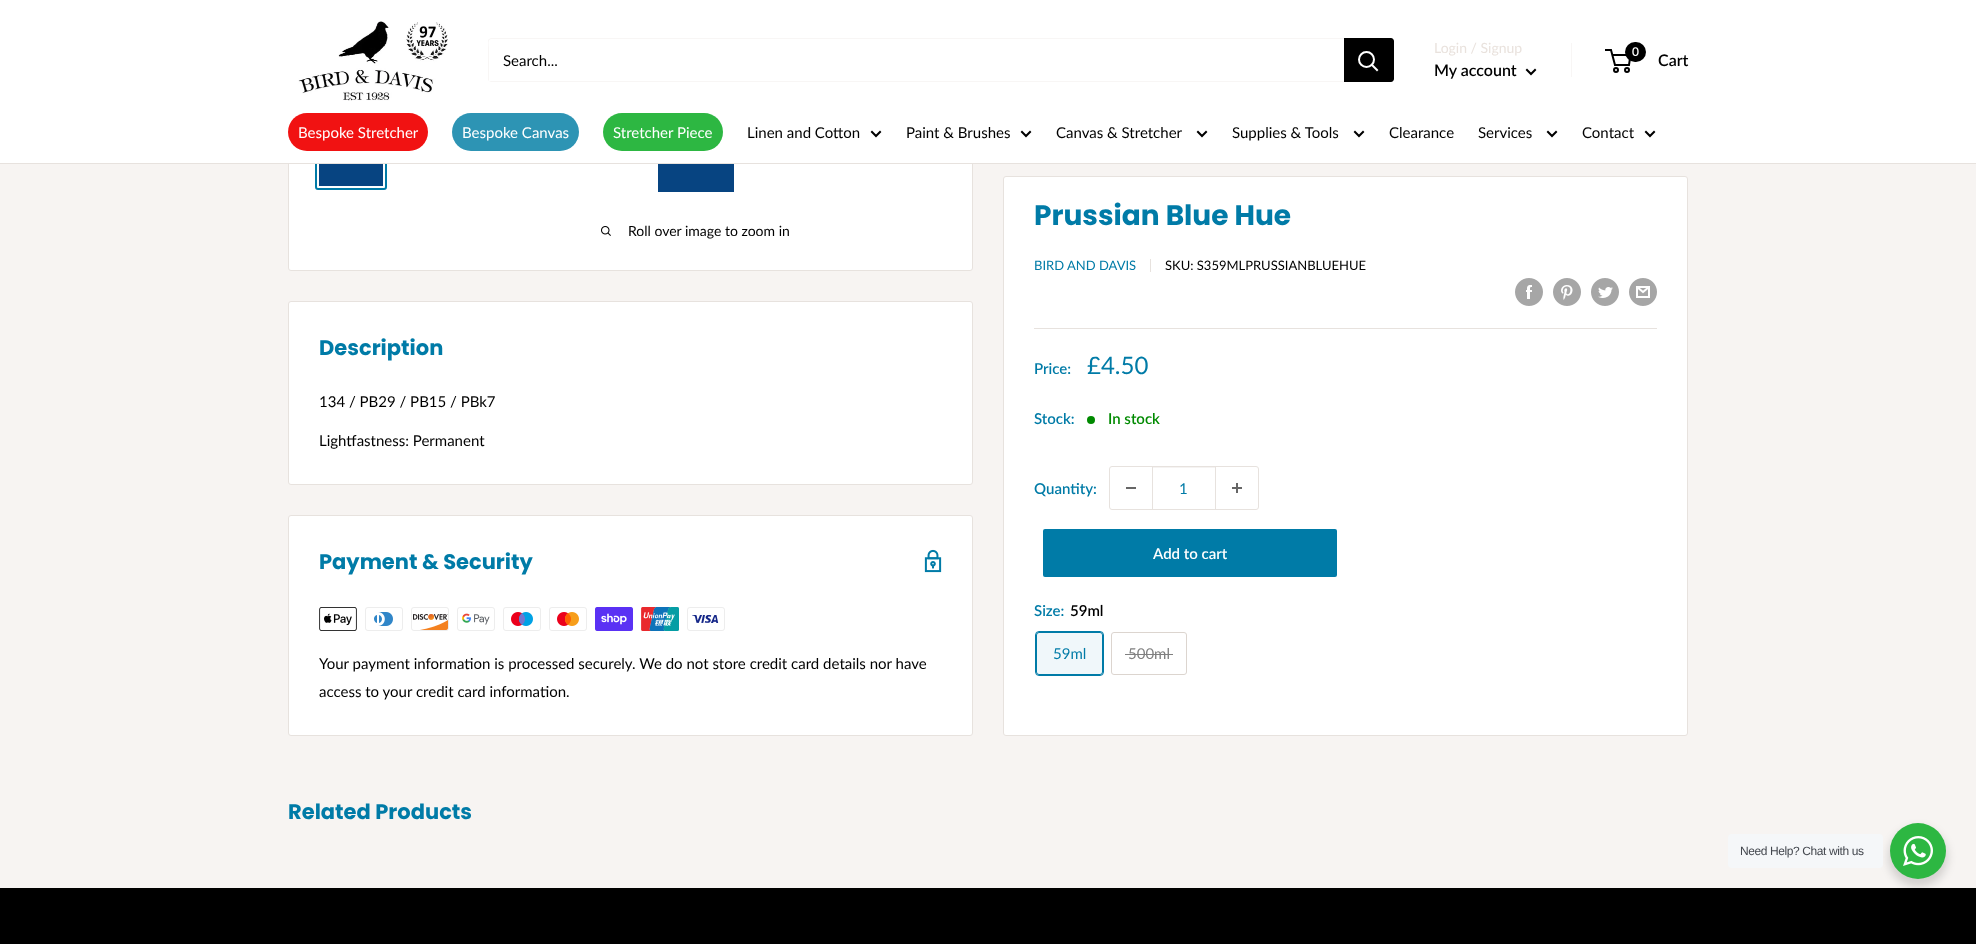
<?xml version="1.0" encoding="UTF-8"?>
<svg xmlns="http://www.w3.org/2000/svg" width="1976" height="944">
    <defs>
        <filter id="blur1" x="-50%" y="-200%" width="200%" height="500%"><feGaussianBlur stdDeviation="4"/></filter>
    </defs>
    <rect width="100%" height="100%" fill="#F7F4F2"/>
    <rect x="288.5" y="125.5" width="684" height="145" rx="2.5" fill="#FFFFFF" stroke="#E7E2DE"/>
    <rect x="316" y="153" width="70" height="36" rx="2" fill="none" stroke="#007BA7" stroke-width="2"/>
    <rect x="0" y="0" width="1976" height="163" fill="#FFFFFF"/>
    <image x="298" y="21" width="150" height="80" href="img_01.png"/>
    <path d="M 489 81 L 491 82 H 1391 L 1393 81 L 1394 80 V 40 L 1393 39 V 72 C 1393 74 1395 81 1390 81 Z" fill="#F8F6F5"/>
    <path d="M 492 39 H 1393 L 1391 38 H 491 L 489 39 L 488 40 V 80 L 489 81 V 48 C 489 46 487 39 492 39 Z" fill="#F8F6F5"/>
    <text x="503" y="66" font-family="Lato" font-size="15" fill="#000000">Search...</text>
    <path d="M 1344 38 H 1391 C 1392.5 38 1394 39.5 1394 41 V 79 C 1394 80.5 1392.5 82 1391 82 H 1344 Z" fill="#000000"/>
    <path d="M 1377 70 L 1372 65" fill="none" stroke="#FFFFFF" stroke-width="2" stroke-linecap="square"/>
    <circle cx="1366.5" cy="59.5" r="7.5" fill="none" stroke="#FFFFFF" stroke-width="2"/>
    <text x="1434" y="53" font-family="Lato" font-size="14" fill="#E9E2DD">Login / Signup</text>
    <rect x="1571" y="43" width="1" height="34" fill="#F8F6F5"/>
    <text x="1434" y="76" font-family="Lato" font-size="16" font-weight="600" fill="#000000">My account</text>
    <path d="M 1535 70 L 1531 74 L 1527 70" fill="none" stroke="#000000" stroke-width="2" stroke-linecap="square"/>
    <circle cx="1616" cy="70" r="2" fill="none" stroke="#000000" stroke-width="2"/>
    <circle cx="1627" cy="70" r="2" fill="none" stroke="#000000" stroke-width="2"/>
    <path d="M 1612.5 55 H 1630.5 L 1629 65 H 1615 L 1611 50 H 1605" fill="none" stroke="#000000" stroke-width="2"/>
    <rect x="1625" y="42" width="21" height="20" rx="10" fill="#000000"/>
    <text x="1632" y="56" font-family="Lato" font-size="12" font-weight="600" fill="#FFFFFF">0</text>
    <text x="1658" y="66" font-family="Lato" font-size="16" font-weight="600" fill="#000000">Cart</text>
    <rect x="0" y="163" width="1976" height="1" fill="#E7E2DE"/>
    <rect x="288" y="113" width="140" height="38" rx="19" fill="#F11212"/>
    <text x="298" y="138" font-family="Lato" font-size="15" fill="#FFFFFF">Bespoke Stretcher</text>
    <rect x="452" y="113" width="127" height="38" rx="19" fill="#2D94B4"/>
    <text x="462" y="138" font-family="Lato" font-size="15" fill="#FFFFFF">Bespoke Canvas</text>
    <rect x="603" y="113" width="120" height="38" rx="19" fill="#2DB742"/>
    <text x="613" y="138" font-family="Lato" font-size="15" fill="#FFFFFF">Stretcher Piece</text>
    <text x="747" y="138" font-family="Lato" font-size="15" fill="#000000">Linen and Cotton</text>
    <path d="M 880 132 L 876 136 L 872 132" fill="none" stroke="#000000" stroke-width="2" stroke-linecap="square"/>
    <text x="906" y="138" font-family="Lato" font-size="15" fill="#000000">Paint &amp; Brushes</text>
    <path d="M 1030 132 L 1026 136 L 1022 132" fill="none" stroke="#000000" stroke-width="2" stroke-linecap="square"/>
    <text x="1056" y="138" font-family="Lato" font-size="15" fill="#000000">Canvas &amp; Stretcher</text>
    <path d="M 1206 132 L 1202 136 L 1198 132" fill="none" stroke="#000000" stroke-width="2" stroke-linecap="square"/>
    <text x="1232" y="138" font-family="Lato" font-size="15" fill="#000000">Supplies &amp; Tools</text>
    <path d="M 1363 132 L 1359 136 L 1355 132" fill="none" stroke="#000000" stroke-width="2" stroke-linecap="square"/>
    <text x="1389" y="138" font-family="Lato" font-size="15" fill="#000000">Clearance</text>
    <text x="1478" y="138" font-family="Lato" font-size="15" fill="#000000">Services</text>
    <path d="M 1556 132 L 1552 136 L 1548 132" fill="none" stroke="#000000" stroke-width="2" stroke-linecap="square"/>
    <text x="1582" y="138" font-family="Lato" font-size="15" fill="#000000">Contact</text>
    <path d="M 1654 132 L 1650 136 L 1646 132" fill="none" stroke="#000000" stroke-width="2" stroke-linecap="square"/>
    <rect x="319" y="164" width="64" height="22" fill="#074481"/>
    <rect x="658" y="164" width="76" height="28" fill="#074481"/>
    <image x="601" y="226" width="10" height="10" href="img_02.png"/>
    <text x="628" y="236" font-family="Lato" font-size="14" fill="#000000">Roll over image to zoom in</text>
    <rect x="1003.5" y="176.5" width="684" height="559" rx="2.5" fill="#FFFFFF" stroke="#E7E2DE"/>
    <text x="1034" y="225" font-family="Poppins" font-size="28" font-weight="700" fill="#007BA7">Prussian Blue Hue</text>
    <text x="1034" y="270" font-family="Lato" font-size="13" fill="#007BA7">BIRD AND DAVIS</text>
    <rect x="1150" y="259" width="1" height="13" fill="#E7E2DE"/>
    <text x="1165" y="270" font-family="Lato" font-size="13" fill="#000000">SKU: S359MLPRUSSIANBLUEHUE</text>
    <image x="1515" y="278" width="28" height="28" href="img_03.png"/>
    <image x="1553" y="278" width="28" height="28" href="img_04.png"/>
    <image x="1591" y="278" width="28" height="28" href="img_05.png"/>
    <image x="1629" y="278" width="28" height="28" href="img_06.png"/>
    <rect x="1034" y="328" width="623" height="1" fill="#E7E2DE"/>
    <text x="1034" y="374" font-family="Lato" font-size="15" font-weight="600" fill="#007BA7">Price:</text>
    <text x="1087" y="374" font-family="Lato" font-size="24" fill="#007BA7">£4.50</text>
    <text x="1034" y="424" font-family="Lato" font-size="15" font-weight="600" fill="#007BA7">Stock:</text>
    <circle cx="1091" cy="420" r="4" fill="#008A00"/>
    <text x="1108" y="424" font-family="Lato" font-size="15" font-weight="600" fill="#008A00">In stock</text>
    <text x="1034" y="494" font-family="Lato" font-size="15" font-weight="600" fill="#007BA7">Quantity:</text>
    <rect x="1109.5" y="466.5" width="149" height="43" rx="2.5" fill="none" stroke="#E7E2DE"/>
    <rect x="1126" y="487" width="10" height="2" fill="#666666"/>
    <rect x="1153" y="467" width="62" height="1" fill="#F5F3F2"/>
    <rect x="1215" y="467" width="1" height="42" fill="#E7E2DE"/>
    <rect x="1152" y="467" width="1" height="42" fill="#E7E2DE"/>
    <text x="1179" y="494" font-family="Lato" font-size="15" fill="#007BA7">1</text>
    <image x="1232" y="483" width="10" height="10" href="img_07.png"/>
    <rect x="1043" y="529" width="294" height="48" rx="2" fill="#007BA7"/>
    <text x="1153" y="559" font-family="Lato" font-size="15" font-weight="600" fill="#FFFFFF">Add to cart</text>
    <text x="1034" y="616" font-family="Lato" font-size="15" font-weight="600" fill="#007BA7">Size:</text>
    <text x="1070" y="616" font-family="Lato" font-size="15" font-weight="600" fill="#000000">59ml</text>
    <rect x="1035.5" y="631.5" width="68" height="44" rx="3.5" fill="none" stroke="#007BA7"/>
    <rect x="1036" y="632" width="67" height="43" fill="#007BA7" fill-opacity="0.06"/>
    <rect x="1036.5" y="632.5" width="66" height="42" rx="2.5" fill="none" stroke="#007BA7"/>
    <text x="1053" y="659" font-family="Lato" font-size="15" fill="#007BA7">59ml</text>
    <rect x="1111.5" y="632.5" width="75" height="42" rx="2.5" fill="none" stroke="#DCD5CF"/>
    <text x="1128" y="659" font-family="Lato" font-size="15" fill="#808080">500ml</text>
    <rect x="1125" y="654" width="48" height="1" fill="#808080"/>
    <rect x="288.5" y="301.5" width="684" height="183" rx="2.5" fill="#FFFFFF" stroke="#E7E2DE"/>
    <text x="319" y="355" font-family="Poppins" font-size="21" font-weight="700" fill="#007BA7">Description</text>
    <text x="319" y="407" font-family="Lato" font-size="15" fill="#000000">134 / PB29 / PB15 / PBk7</text>
    <text x="319" y="446" font-family="Lato" font-size="15" fill="#000000">Lightfastness: Permanent</text>
    <rect x="288.5" y="515.5" width="684" height="220" rx="2.5" fill="#FFFFFF" stroke="#E7E2DE"/>
    <text x="319" y="569" font-family="Poppins" font-size="21" font-weight="700" fill="#007BA7">Payment &amp; Security</text>
    <image x="924" y="549" width="18" height="24" href="img_08.png"/>
    <image x="319" y="607" width="38" height="24" href="img_09.png"/>
    <image x="365" y="607" width="38" height="24" href="img_10.png"/>
    <image x="411" y="607" width="38" height="24" href="img_11.png"/>
    <image x="457" y="607" width="38" height="24" href="img_12.png"/>
    <image x="503" y="607" width="38" height="24" href="img_13.png"/>
    <image x="549" y="607" width="38" height="24" href="img_14.png"/>
    <image x="595" y="607" width="38" height="24" href="img_15.png"/>
    <image x="641" y="607" width="38" height="24" href="img_16.png"/>
    <image x="687" y="607" width="38" height="24" href="img_17.png"/>
    <text font-family="Lato" font-size="15" fill="#000000">
        <tspan x="319" y="669">Your payment information is processed securely. We do not store credit card details nor have</tspan>
        <tspan x="319" y="697">access to your credit card information.</tspan>
    </text>
    <text x="288" y="819" font-family="Poppins" font-size="21" font-weight="700" fill="#007BA7">Related Products</text>
    <rect x="0" y="888" width="1976" height="56" fill="#000000"/>
    <rect x="1888" y="827" width="60" height="60" rx="30" fill="#000000" fill-opacity="0.14" filter="url(#blur1)"/>
    <rect x="1728" y="834" width="155" height="34" rx="4" fill="#F5F7F9"/>
    <text x="1740" y="855" font-family="Liberation Sans" font-size="12" letter-spacing="-0.4" fill="#43474E">Need Help? Chat with us</text>
    <circle cx="1918" cy="851" r="28" fill="#2DB742"/>
    <image x="1903" y="836" width="30" height="30" href="img_18.png"/>
</svg>
